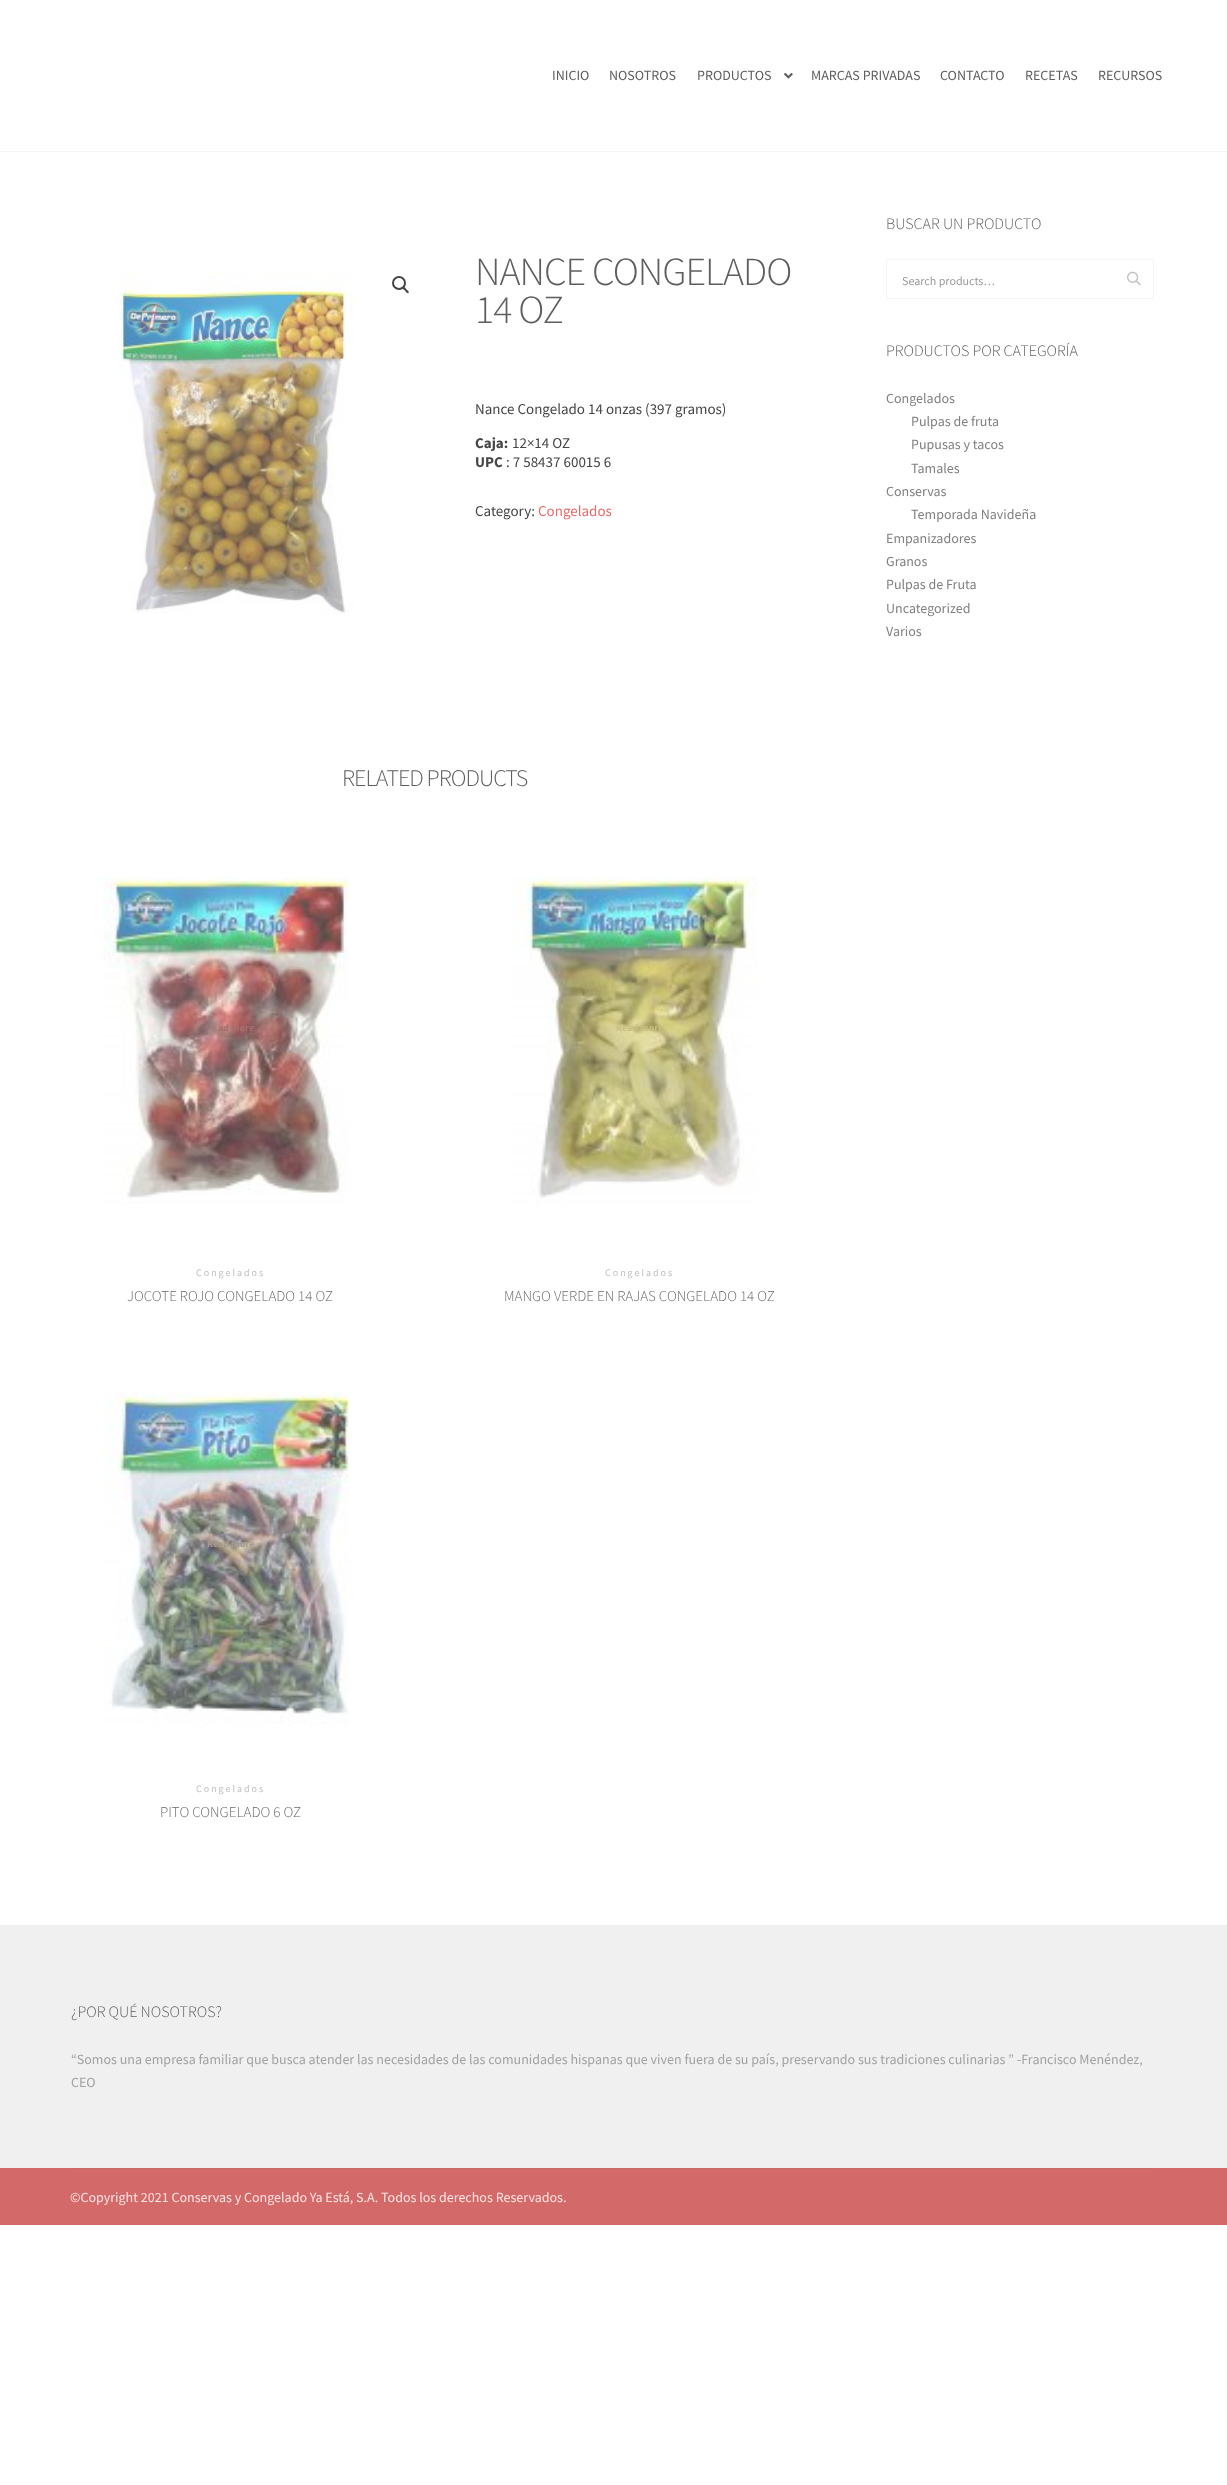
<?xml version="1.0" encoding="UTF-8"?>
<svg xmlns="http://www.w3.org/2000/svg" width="1227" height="2485">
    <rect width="100%" height="100%" fill="#FFFFFF"/>
    <rect x="0" y="151" width="1227" height="1" fill="#F6F6F6"/>
    <text x="552" y="80" font-family="Source Sans Pro" font-size="14" fill="#5E5E5E">INICIO</text>
    <text x="609" y="80" font-family="Source Sans Pro" font-size="14" fill="#5E5E5E">NOSOTROS</text>
    <text x="697" y="80" font-family="Source Sans Pro" font-size="14" fill="#5E5E5E">PRODUCTOS</text>
    <image x="784" y="73" width="9" height="6" href="img_01.png"/>
    <text x="811" y="80" font-family="Source Sans Pro" font-size="14" fill="#5E5E5E">MARCAS PRIVADAS</text>
    <text x="940" y="80" font-family="Source Sans Pro" font-size="14" fill="#5E5E5E">CONTACTO</text>
    <text x="1025" y="80" font-family="Source Sans Pro" font-size="14" fill="#5E5E5E">RECETAS</text>
    <text x="1098" y="80" font-family="Source Sans Pro" font-size="14" fill="#5E5E5E">RECURSOS</text>
    <image x="118" y="273" width="237" height="341" href="img_02.png"/>
    <circle cx="399" cy="283" r="6" fill="none" stroke="#454545" stroke-width="2"/>
    <path d="M 403 287 C 404 286 406 288.5 406.5 289.5 C 407 290 409.5 291.5 408.5 293 C 407.5 294 405.5 291.5 405 290.5 C 404.5 290 401.5 288.5 403 287 Z" fill="#454545"/>
    <text font-family="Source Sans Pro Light" font-size="40" font-weight="300" letter-spacing="-1" fill="#5E5E5E">
        <tspan x="475" y="285">NANCE CONGELADO</tspan>
        <tspan x="475" y="323">14 OZ</tspan>
    </text>
    <text x="475" y="414" font-family="Source Sans Pro" font-size="15" fill="#454545">Nance Congelado 14 onzas (397 gramos)</text>
    <text x="475" y="448" font-family="Source Sans Pro" font-size="15" font-weight="700" fill="#454545">Caja:</text>
    <text x="512" y="448" font-family="Source Sans Pro" font-size="15" fill="#454545">12×14 OZ</text>
    <text x="475" y="467" font-family="Source Sans Pro" font-size="15" font-weight="700" fill="#454545">UPC</text>
    <text x="506" y="467" font-family="Source Sans Pro" font-size="15" fill="#454545">: 7 58437 60015 6</text>
    <text x="475" y="516" font-family="Source Sans Pro" font-size="15" fill="#454545">Category:</text>
    <text x="538" y="516" font-family="Source Sans Pro" font-size="15" fill="#E66A6A">Congelados</text>
    <text x="342" y="786" font-family="Source Sans Pro Light" font-size="24" font-weight="300" letter-spacing="-1" fill="#5E5E5E">RELATED PRODUCTS</text>
    <image x="102" y="877" width="248" height="328" href="img_03.png"/>
    <text x="218" y="1031" font-family="Source Sans Pro" font-size="10" font-weight="700" fill="#A57070">ad more</text>
    <text x="196" y="1276" font-family="Source Sans Pro" font-size="10" letter-spacing="2" fill="#BFBFBF">Congelados</text>
    <text x="127" y="1301" font-family="Source Sans Pro Light" font-size="15" font-weight="300" fill="#696969">JOCOTE ROJO CONGELADO 14 OZ</text>
    <image x="512" y="876" width="246" height="329" href="img_04.png"/>
    <text x="616" y="1031" font-family="Source Sans Pro" font-size="10" font-weight="700" fill="#C7BF81">Read more</text>
    <text x="605" y="1276" font-family="Source Sans Pro" font-size="10" letter-spacing="2" fill="#BFBFBF">Congelados</text>
    <text x="504" y="1301" font-family="Source Sans Pro Light" font-size="15" font-weight="300" fill="#696969">MANGO VERDE EN RAJAS CONGELADO 14 OZ</text>
    <image x="102" y="1392" width="249" height="334" href="img_05.png"/>
    <text x="207" y="1547" font-family="Source Sans Pro" font-size="10" font-weight="700" fill="#A49A90">Read more</text>
    <text x="196" y="1792" font-family="Source Sans Pro" font-size="10" letter-spacing="2" fill="#BFBFBF">Congelados</text>
    <text x="160" y="1817" font-family="Source Sans Pro Light" font-size="15" font-weight="300" fill="#696969">PITO CONGELADO 6 OZ</text>
    <text x="886" y="229" font-family="Source Sans Pro Light" font-size="16" font-weight="300" fill="#5E5E5E">BUSCAR UN PRODUCTO</text>
    <rect x="886.5" y="259.5" width="267" height="39" rx="1.5" fill="none" stroke="#F3F3F3"/>
    <text x="902" y="285" font-family="Source Sans Pro" font-size="12" fill="#9A9A9A">Search products…</text>
    <image x="1127" y="271" width="14" height="15" href="img_06.png"/>
    <text x="886" y="356" font-family="Source Sans Pro Light" font-size="16" font-weight="300" fill="#5E5E5E">PRODUCTOS POR CATEGORÍA</text>
    <text x="886" y="403" font-family="Source Sans Pro" font-size="14" fill="#818181">Congelados</text>
    <text font-family="Source Sans Pro" font-size="14" fill="#818181">
        <tspan x="911" y="426">Pulpas de fruta</tspan>
        <tspan x="911" y="449">Pupusas y tacos</tspan>
        <tspan x="911" y="473">Tamales</tspan>
    </text>
    <text x="886" y="496" font-family="Source Sans Pro" font-size="14" fill="#818181">Conservas</text>
    <text x="911" y="519" font-family="Source Sans Pro" font-size="14" fill="#818181">Temporada Navideña</text>
    <text font-family="Source Sans Pro" font-size="14" fill="#818181">
        <tspan x="886" y="543">Empanizadores</tspan>
        <tspan x="886" y="566">Granos</tspan>
        <tspan x="886" y="589">Pulpas de Fruta</tspan>
        <tspan x="886" y="613">Uncategorized</tspan>
        <tspan x="886" y="636">Varios</tspan>
    </text>
    <rect x="0" y="1925" width="1227" height="243" fill="#F0F0F0"/>
    <text x="71" y="2017" font-family="Source Sans Pro Light" font-size="16" font-weight="300" fill="#5E5E5E">¿POR QUÉ NOSOTROS?</text>
    <text font-family="Source Sans Pro" font-size="14" fill="#A2A2A2">
        <tspan x="71" y="2064">“Somos una empresa familiar que busca atender las necesidades de las comunidades hispanas que viven fuera de su país, preservando sus tradiciones culinarias ” -Francisco Menéndez,</tspan>
        <tspan x="71" y="2087">CEO</tspan>
    </text>
    <rect x="0" y="2168" width="1227" height="57" fill="#D46969"/>
    <rect x="70" y="2168" width="1087" height="1" fill="#C96969"/>
    <text x="70" y="2202" font-family="Source Sans Pro" font-size="14" fill="#FFE3E3">©Copyright 2021 Conservas y Congelado Ya Está, S.A. Todos los derechos Reservados.</text>
</svg>
